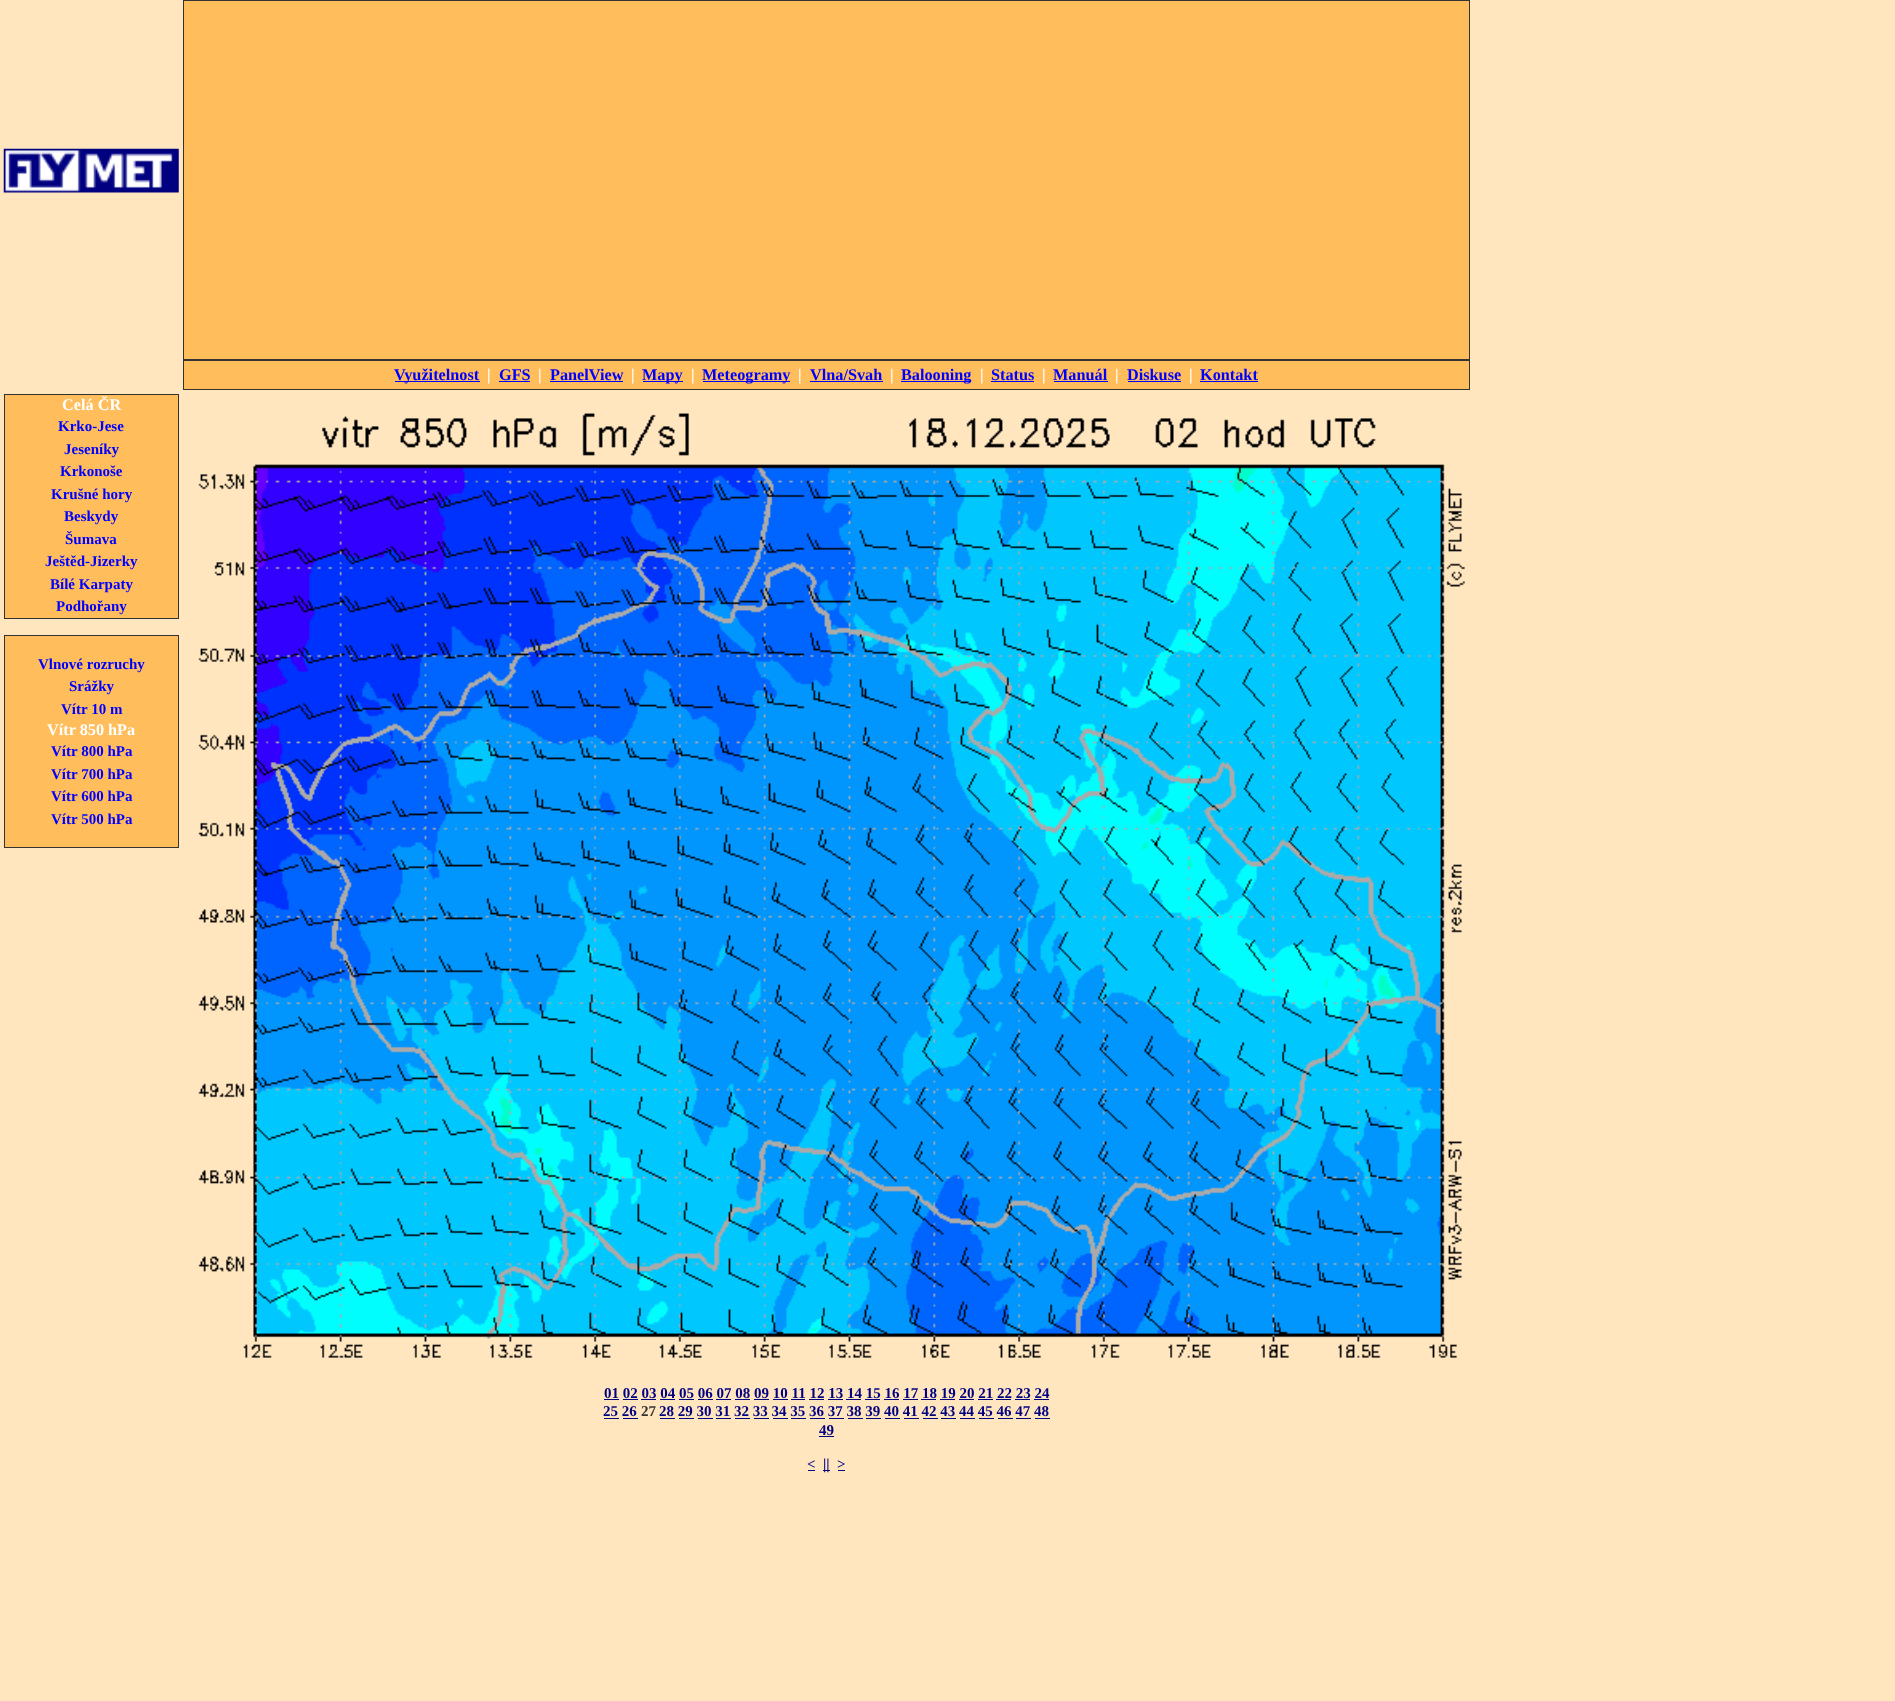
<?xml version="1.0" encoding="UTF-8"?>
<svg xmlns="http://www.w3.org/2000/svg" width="1895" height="1701">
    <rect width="100%" height="100%" fill="#FFE6BF"/>
    <image x="3" y="148" width="176" height="45" href="img_01.png"/>
    <rect x="183.5" y="0.5" width="1286" height="359" fill="#FFBD5B" stroke="#333333"/>
    <rect x="183.5" y="360.5" width="1286" height="29" fill="#FFBD5B" stroke="#333333"/>
    <rect x="395" y="381" width="85" height="1" fill="#0000FF"/>
    <text x="394" y="380" font-family="Liberation Serif" font-size="16.25" font-weight="700" fill="#0000FF">Využitelnost</text>
    <text x="487" y="380" font-family="Liberation Serif" font-size="16.25" font-weight="700" fill="#FFFFFF">|</text>
    <text x="499" y="380" font-family="Liberation Serif" font-size="16.25" font-weight="700" fill="#0000FF">GFS</text>
    <rect x="499" y="381" width="31" height="1" fill="#0000FF"/>
    <text x="538" y="380" font-family="Liberation Serif" font-size="16.25" font-weight="700" fill="#FFFFFF">|</text>
    <text x="550" y="380" font-family="Liberation Serif" font-size="16.25" font-weight="700" fill="#0000FF">PanelView</text>
    <rect x="550" y="381" width="73" height="1" fill="#0000FF"/>
    <text x="631" y="380" font-family="Liberation Serif" font-size="16.25" font-weight="700" fill="#FFFFFF">|</text>
    <rect x="643" y="381" width="40" height="1" fill="#0000FF"/>
    <text x="642" y="380" font-family="Liberation Serif" font-size="16.25" font-weight="700" fill="#0000FF">Mapy</text>
    <text x="691" y="380" font-family="Liberation Serif" font-size="16.25" font-weight="700" fill="#FFFFFF">|</text>
    <rect x="703" y="381" width="87" height="1" fill="#0000FF"/>
    <text x="702" y="380" font-family="Liberation Serif" font-size="16.25" font-weight="700" fill="#0000FF">Meteogramy</text>
    <text x="798" y="380" font-family="Liberation Serif" font-size="16.25" font-weight="700" fill="#FFFFFF">|</text>
    <text x="810" y="380" font-family="Liberation Serif" font-size="16.25" font-weight="700" fill="#0000FF">Vlna/Svah</text>
    <rect x="810" y="381" width="73" height="1" fill="#0000FF"/>
    <text x="890" y="380" font-family="Liberation Serif" font-size="16.25" font-weight="700" fill="#FFFFFF">|</text>
    <rect x="901" y="381" width="70" height="1" fill="#0000FF"/>
    <text x="901" y="380" font-family="Liberation Serif" font-size="16.25" font-weight="700" fill="#0000FF">Balooning</text>
    <text x="980" y="380" font-family="Liberation Serif" font-size="16.25" font-weight="700" fill="#FFFFFF">|</text>
    <text x="991" y="380" font-family="Liberation Serif" font-size="16.25" font-weight="700" fill="#0000FF">Status</text>
    <rect x="991" y="381" width="43" height="1" fill="#0000FF"/>
    <text x="1042" y="380" font-family="Liberation Serif" font-size="16.25" font-weight="700" fill="#FFFFFF">|</text>
    <text x="1053" y="380" font-family="Liberation Serif" font-size="16.25" font-weight="700" fill="#0000FF">Manuál</text>
    <rect x="1054" y="381" width="54" height="1" fill="#0000FF"/>
    <text x="1115" y="380" font-family="Liberation Serif" font-size="16.25" font-weight="700" fill="#FFFFFF">|</text>
    <text x="1127" y="380" font-family="Liberation Serif" font-size="16.25" font-weight="700" fill="#0000FF">Diskuse</text>
    <rect x="1128" y="381" width="53" height="1" fill="#0000FF"/>
    <text x="1189" y="380" font-family="Liberation Serif" font-size="16.25" font-weight="700" fill="#FFFFFF">|</text>
    <text x="1200" y="380" font-family="Liberation Serif" font-size="16.25" font-weight="700" fill="#0000FF">Kontakt</text>
    <rect x="1200" y="381" width="58" height="1" fill="#0000FF"/>
    <rect x="4.5" y="394.5" width="174" height="224" fill="#FFBD5B" stroke="#333333"/>
    <text x="62" y="410" font-family="Liberation Serif" font-size="16.25" font-weight="700" fill="#FFFFFF">Celá ČR</text>
    <text x="58" y="431" font-family="Liberation Serif" font-size="15" font-weight="700" fill="#0000FF">Krko-Jese</text>
    <text x="64" y="454" font-family="Liberation Serif" font-size="15" font-weight="700" fill="#0000FF">Jeseníky</text>
    <text x="60" y="476" font-family="Liberation Serif" font-size="15" font-weight="700" fill="#0000FF">Krkonoše</text>
    <text x="51" y="499" font-family="Liberation Serif" font-size="15" font-weight="700" fill="#0000FF">Krušné hory</text>
    <text x="64" y="521" font-family="Liberation Serif" font-size="15" font-weight="700" fill="#0000FF">Beskydy</text>
    <text x="65" y="544" font-family="Liberation Serif" font-size="15" font-weight="700" fill="#0000FF">Šumava</text>
    <text x="45" y="566" font-family="Liberation Serif" font-size="15" font-weight="700" fill="#0000FF">Ještěd-Jizerky</text>
    <text x="50" y="589" font-family="Liberation Serif" font-size="15" font-weight="700" fill="#0000FF">Bílé Karpaty</text>
    <text x="56" y="611" font-family="Liberation Serif" font-size="15" font-weight="700" fill="#0000FF">Podhořany</text>
    <image x="198" y="413" width="1267" height="945" href="img_02.png"/>
    <text x="604" y="1398" font-family="Liberation Serif" font-size="15" font-weight="700" fill="#000080">01 02 03 04 05 06 07 08 09 10 11 12 13 14 15 16 17 18 19 20 21 22 23 24</text>
    <rect x="604" y="1399" width="15" height="1" fill="#000080"/>
    <rect x="623" y="1399" width="15" height="1" fill="#000080"/>
    <rect x="641" y="1399" width="15" height="1" fill="#000080"/>
    <rect x="660" y="1399" width="15" height="1" fill="#000080"/>
    <rect x="679" y="1399" width="15" height="1" fill="#000080"/>
    <rect x="698" y="1399" width="15" height="1" fill="#000080"/>
    <rect x="716" y="1399" width="15" height="1" fill="#000080"/>
    <rect x="735" y="1399" width="15" height="1" fill="#000080"/>
    <rect x="754" y="1399" width="15" height="1" fill="#000080"/>
    <rect x="773" y="1399" width="15" height="1" fill="#000080"/>
    <rect x="791" y="1399" width="14" height="1" fill="#000080"/>
    <rect x="809" y="1399" width="15" height="1" fill="#000080"/>
    <rect x="828" y="1399" width="15" height="1" fill="#000080"/>
    <rect x="846" y="1399" width="15" height="1" fill="#000080"/>
    <rect x="865" y="1399" width="15" height="1" fill="#000080"/>
    <rect x="884" y="1399" width="15" height="1" fill="#000080"/>
    <rect x="903" y="1399" width="15" height="1" fill="#000080"/>
    <rect x="921" y="1399" width="15" height="1" fill="#000080"/>
    <rect x="940" y="1399" width="15" height="1" fill="#000080"/>
    <rect x="959" y="1399" width="15" height="1" fill="#000080"/>
    <rect x="978" y="1399" width="15" height="1" fill="#000080"/>
    <rect x="996" y="1399" width="15" height="1" fill="#000080"/>
    <rect x="1015" y="1399" width="15" height="1" fill="#000080"/>
    <rect x="1034" y="1399" width="15" height="1" fill="#000080"/>
    <text x="603" y="1416" font-family="Liberation Serif" font-size="15" font-weight="700" fill="#000080">25 26</text>
    <rect x="604" y="1418" width="15" height="1" fill="#000080"/>
    <text x="641" y="1416" font-family="Liberation Serif" font-size="15" font-weight="700" fill="#333333">27</text>
    <text x="659" y="1416" font-family="Liberation Serif" font-size="15" font-weight="700" fill="#000080">28 29 30 31 32 33 34 35 36 37 38 39 40 41 42 43 44 45 46 47 48</text>
    <rect x="660" y="1418" width="15" height="1" fill="#000080"/>
    <rect x="623" y="1418" width="15" height="1" fill="#000080"/>
    <rect x="679" y="1418" width="15" height="1" fill="#000080"/>
    <rect x="698" y="1418" width="15" height="1" fill="#000080"/>
    <rect x="716" y="1418" width="15" height="1" fill="#000080"/>
    <rect x="735" y="1418" width="15" height="1" fill="#000080"/>
    <rect x="754" y="1418" width="15" height="1" fill="#000080"/>
    <rect x="773" y="1418" width="15" height="1" fill="#000080"/>
    <rect x="791" y="1418" width="15" height="1" fill="#000080"/>
    <rect x="810" y="1418" width="15" height="1" fill="#000080"/>
    <rect x="829" y="1418" width="15" height="1" fill="#000080"/>
    <rect x="848" y="1418" width="15" height="1" fill="#000080"/>
    <rect x="866" y="1418" width="15" height="1" fill="#000080"/>
    <rect x="885" y="1418" width="15" height="1" fill="#000080"/>
    <rect x="904" y="1418" width="15" height="1" fill="#000080"/>
    <rect x="923" y="1418" width="15" height="1" fill="#000080"/>
    <rect x="941" y="1418" width="15" height="1" fill="#000080"/>
    <rect x="960" y="1418" width="15" height="1" fill="#000080"/>
    <rect x="979" y="1418" width="15" height="1" fill="#000080"/>
    <rect x="998" y="1418" width="15" height="1" fill="#000080"/>
    <rect x="1016" y="1418" width="15" height="1" fill="#000080"/>
    <rect x="1035" y="1418" width="15" height="1" fill="#000080"/>
    <text x="819" y="1435" font-family="Liberation Serif" font-size="15" font-weight="700" fill="#000080">49</text>
    <rect x="819" y="1436" width="15" height="1" fill="#000080"/>
    <text x="807" y="1469" font-family="Liberation Serif" font-size="15" font-weight="700" fill="#000080">&lt;</text>
    <rect x="808" y="1470" width="7" height="1" fill="#000080"/>
    <rect x="823" y="1470" width="7" height="1" fill="#000080"/>
    <text x="823" y="1469" font-family="Liberation Serif" font-size="15" font-weight="700" fill="#000080">||</text>
    <text x="837" y="1469" font-family="Liberation Serif" font-size="15" font-weight="700" fill="#000080">&gt;</text>
    <rect x="838" y="1470" width="7" height="1" fill="#000080"/>
    <rect x="4.5" y="635.5" width="174" height="212" fill="#FFBD5B" stroke="#333333"/>
    <text x="38" y="669" font-family="Liberation Serif" font-size="15" font-weight="700" fill="#0000FF">Vlnové rozruchy</text>
    <text x="69" y="691" font-family="Liberation Serif" font-size="15" font-weight="700" fill="#0000FF">Srážky</text>
    <text x="61" y="714" font-family="Liberation Serif" font-size="15" font-weight="700" fill="#0000FF">Vítr 10 m</text>
    <text x="47" y="735" font-family="Liberation Serif" font-size="16.25" font-weight="700" fill="#FFFFFF">Vítr 850 hPa</text>
    <text font-family="Liberation Serif" font-size="15" font-weight="700" fill="#0000FF">
        <tspan x="51" y="756">Vítr 800 hPa</tspan>
        <tspan x="51" y="779">Vítr 700 hPa</tspan>
        <tspan x="51" y="801">Vítr 600 hPa</tspan>
        <tspan x="51" y="824">Vítr 500 hPa</tspan>
    </text>
</svg>
